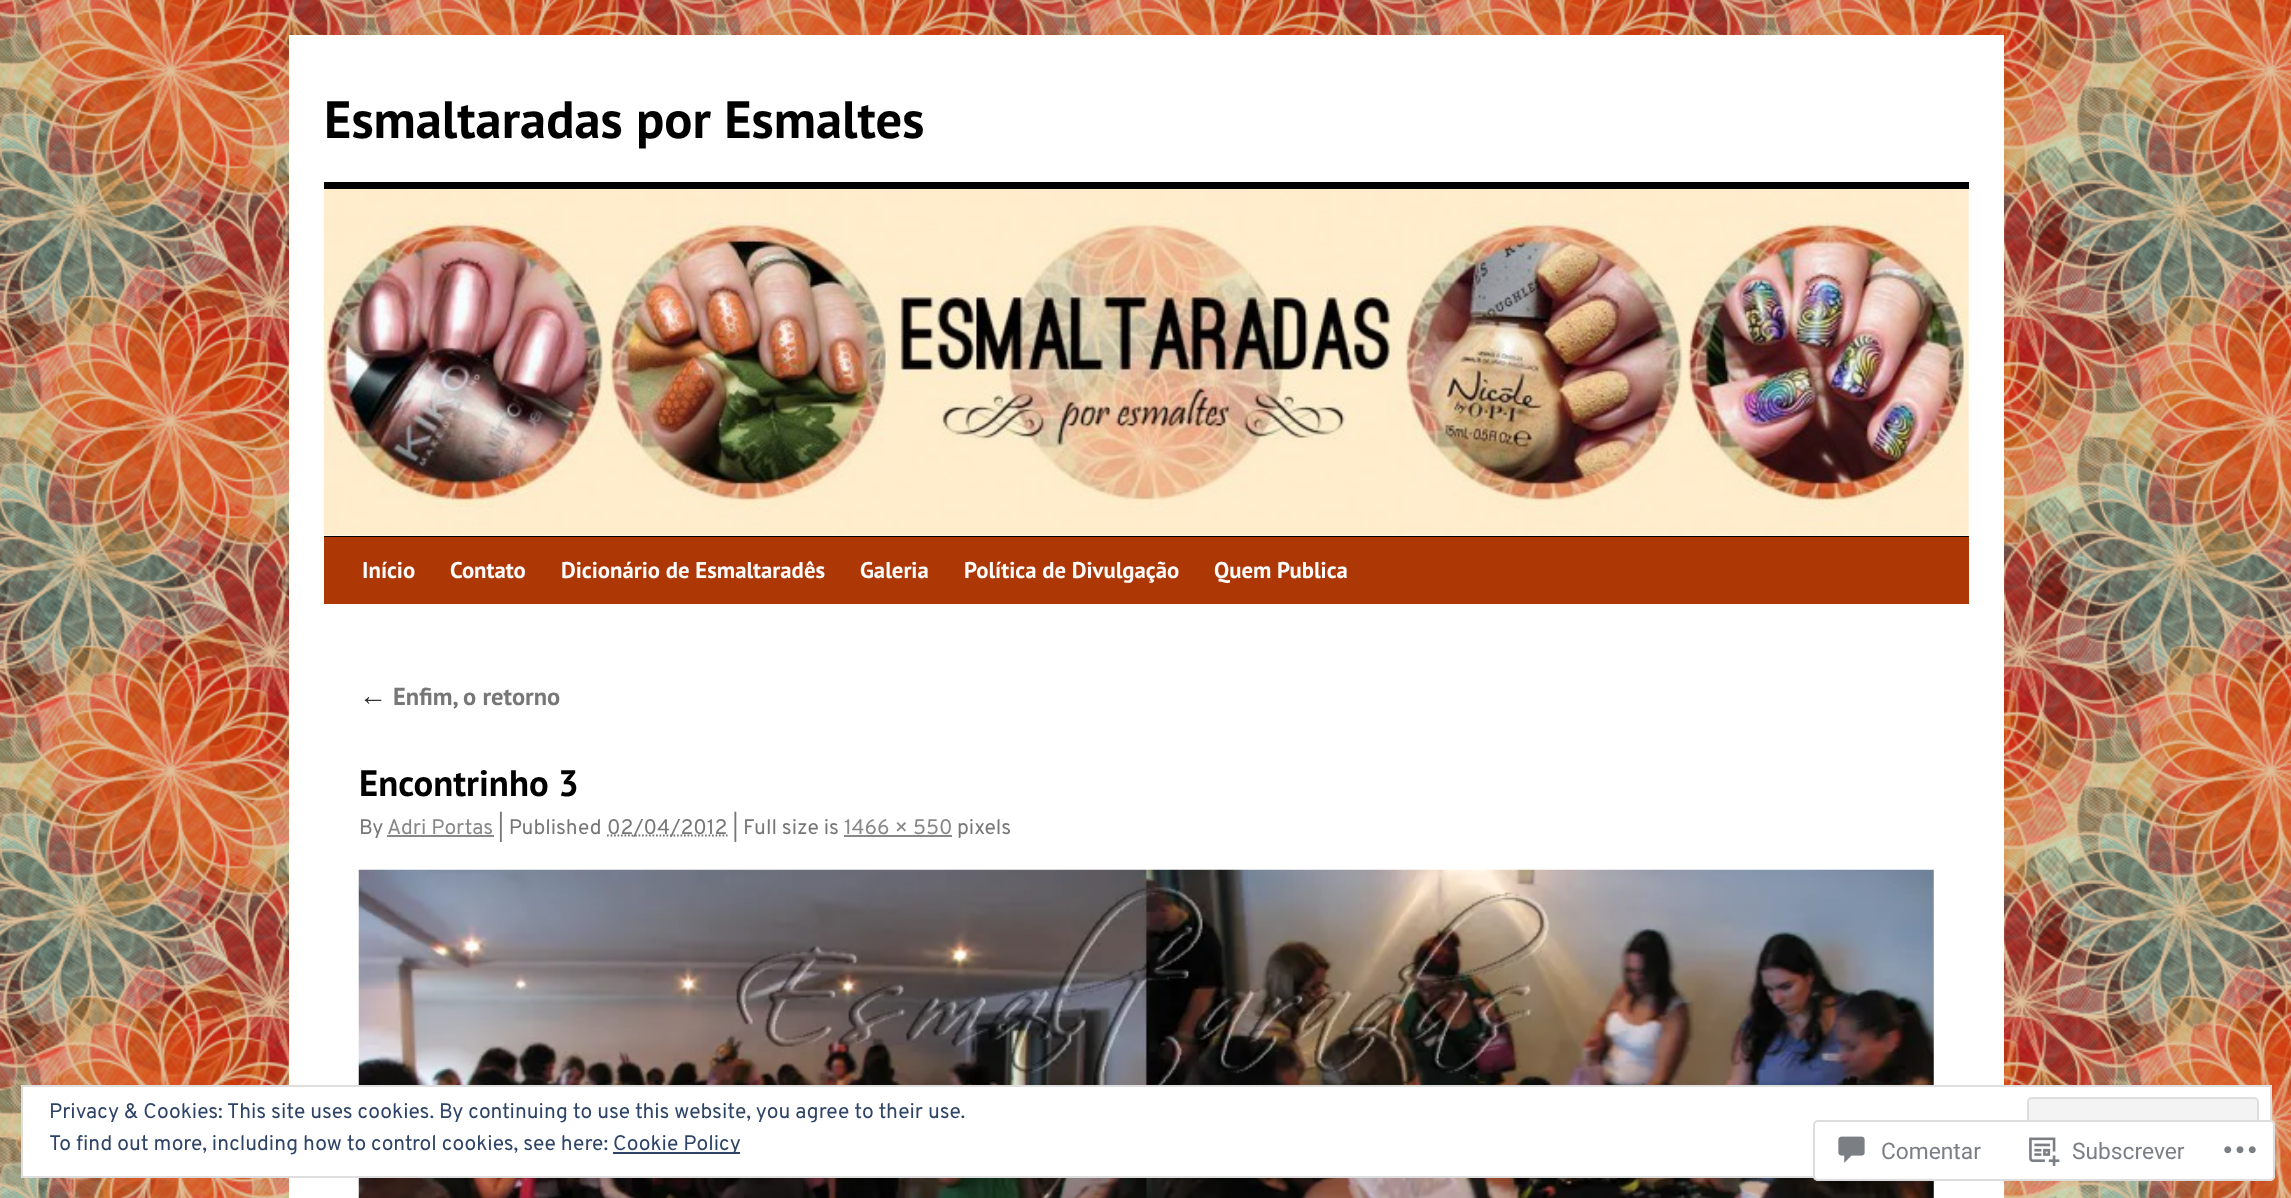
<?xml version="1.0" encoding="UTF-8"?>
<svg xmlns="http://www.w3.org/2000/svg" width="2291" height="1198">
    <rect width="100%" height="100%" fill="#FFFFFF"/>
    <image x="0" y="0" width="2291" height="1198" href="img_01.png"/>
    <rect x="289" y="35" width="1715" height="1163" fill="#FFFFFF"/>
    <text x="324" y="138" font-family="PT Sans" font-size="52.5" font-weight="700" fill="#000000">Esmaltaradas por Esmaltes</text>
    <rect x="324" y="182" width="1645" height="7" fill="#000000"/>
    <rect x="324" y="536" width="1645" height="1" fill="#000000"/>
    <image x="323" y="189" width="1646" height="347" href="img_02.png"/>
    <rect x="324" y="537" width="1645" height="67" fill="#AD3705"/>
    <text x="362" y="578" font-family="PT Sans" font-size="22.75" font-weight="700" fill="#FCFCFC">Início</text>
    <text x="450" y="578" font-family="PT Sans" font-size="22.75" font-weight="700" fill="#FCFCFC">Contato</text>
    <text x="561" y="578" font-family="PT Sans" font-size="22.75" font-weight="700" fill="#FCFCFC">Dicionário de Esmaltaradês</text>
    <text x="860" y="578" font-family="PT Sans" font-size="22.75" font-weight="700" fill="#FCFCFC">Galeria</text>
    <text x="964" y="578" font-family="PT Sans" font-size="22.75" font-weight="700" fill="#FCFCFC">Política de Divulgação</text>
    <text x="1214" y="578" font-family="PT Sans" font-size="22.75" font-weight="700" fill="#FCFCFC">Quem Publica</text>
    <text x="359" y="705" font-family="Liberation Sans" font-size="28" font-weight="700" fill="#333333">←</text>
    <text x="393" y="705" font-family="PT Sans" font-size="24.5" font-weight="700" fill="#777777">Enfim, o retorno</text>
    <text x="359" y="796" font-family="PT Sans" font-size="36.75" font-weight="700" fill="#000000">Encontrinho 3</text>
    <text x="359" y="834" font-family="Overpass" font-size="21" fill="#777777">By</text>
    <text x="387" y="834" font-family="Overpass" font-size="21" fill="#888888">Adri Portas</text>
    <rect x="387" y="835" width="107" height="2" fill="#888888"/>
    <text x="498" y="834" font-family="Overpass" font-size="21" fill="#777777">| Published</text>
    <path d="M 607 835.5 H 727.5" fill="none" stroke="#777777" stroke-width="1.8" stroke-dasharray="1.75 1.75"/>
    <text x="607" y="834" font-family="Overpass" font-size="21" fill="#777777">02/04/2012 | Full size is</text>
    <text x="844" y="834" font-family="Overpass" font-size="21" fill="#888888">1466 × 550</text>
    <rect x="844" y="835" width="108" height="2" fill="#888888"/>
    <text x="957" y="834" font-family="Overpass" font-size="21" fill="#777777">pixels</text>
    <image x="358" y="869" width="1576" height="329" href="img_03.png"/>
    <rect x="22" y="1086" width="2249" height="91" fill="#FFFFFF" stroke="#DEDEDE" stroke-width="2"/>
    <text x="49" y="1118" font-family="Overpass" font-size="21" fill="#2E4467">Privacy &amp; Cookies: This site uses cookies. By continuing to use this website, you agree to their use.</text>
    <rect x="2028" y="1098" width="230" height="67" rx="4" fill="#F3F3F3" stroke="#DEDEDE" stroke-width="2"/>
    <text x="49" y="1150" font-family="Overpass" font-size="21" fill="#2E4467">To find out more, including how to control cookies, see here:</text>
    <rect x="613" y="1152" width="127" height="2" fill="#2E4467"/>
    <text x="613" y="1150" font-family="Overpass" font-size="21" fill="#2E4467">Cookie Policy</text>
    <rect x="1813" y="1120" width="462" height="61" rx="5" fill="#FFFFFF" fill-opacity="0.98"/>
    <rect x="1814" y="1121" width="460" height="59" rx="4" fill="none" stroke="#DCDCDE" stroke-opacity="0.98" stroke-width="2"/>
    <image x="1838" y="1136" width="27" height="27" href="img_04.png"/>
    <text x="1881" y="1159" font-family="Roboto" font-size="22.75" fill="#7B7F85">Comentar</text>
    <image x="2029" y="1137" width="31" height="29" href="img_05.png"/>
    <text x="2072" y="1159" font-family="Roboto" font-size="22.75" fill="#7B7F85">Subscrever</text>
    <image x="2224" y="1146" width="32" height="8" href="img_06.png"/>
</svg>
